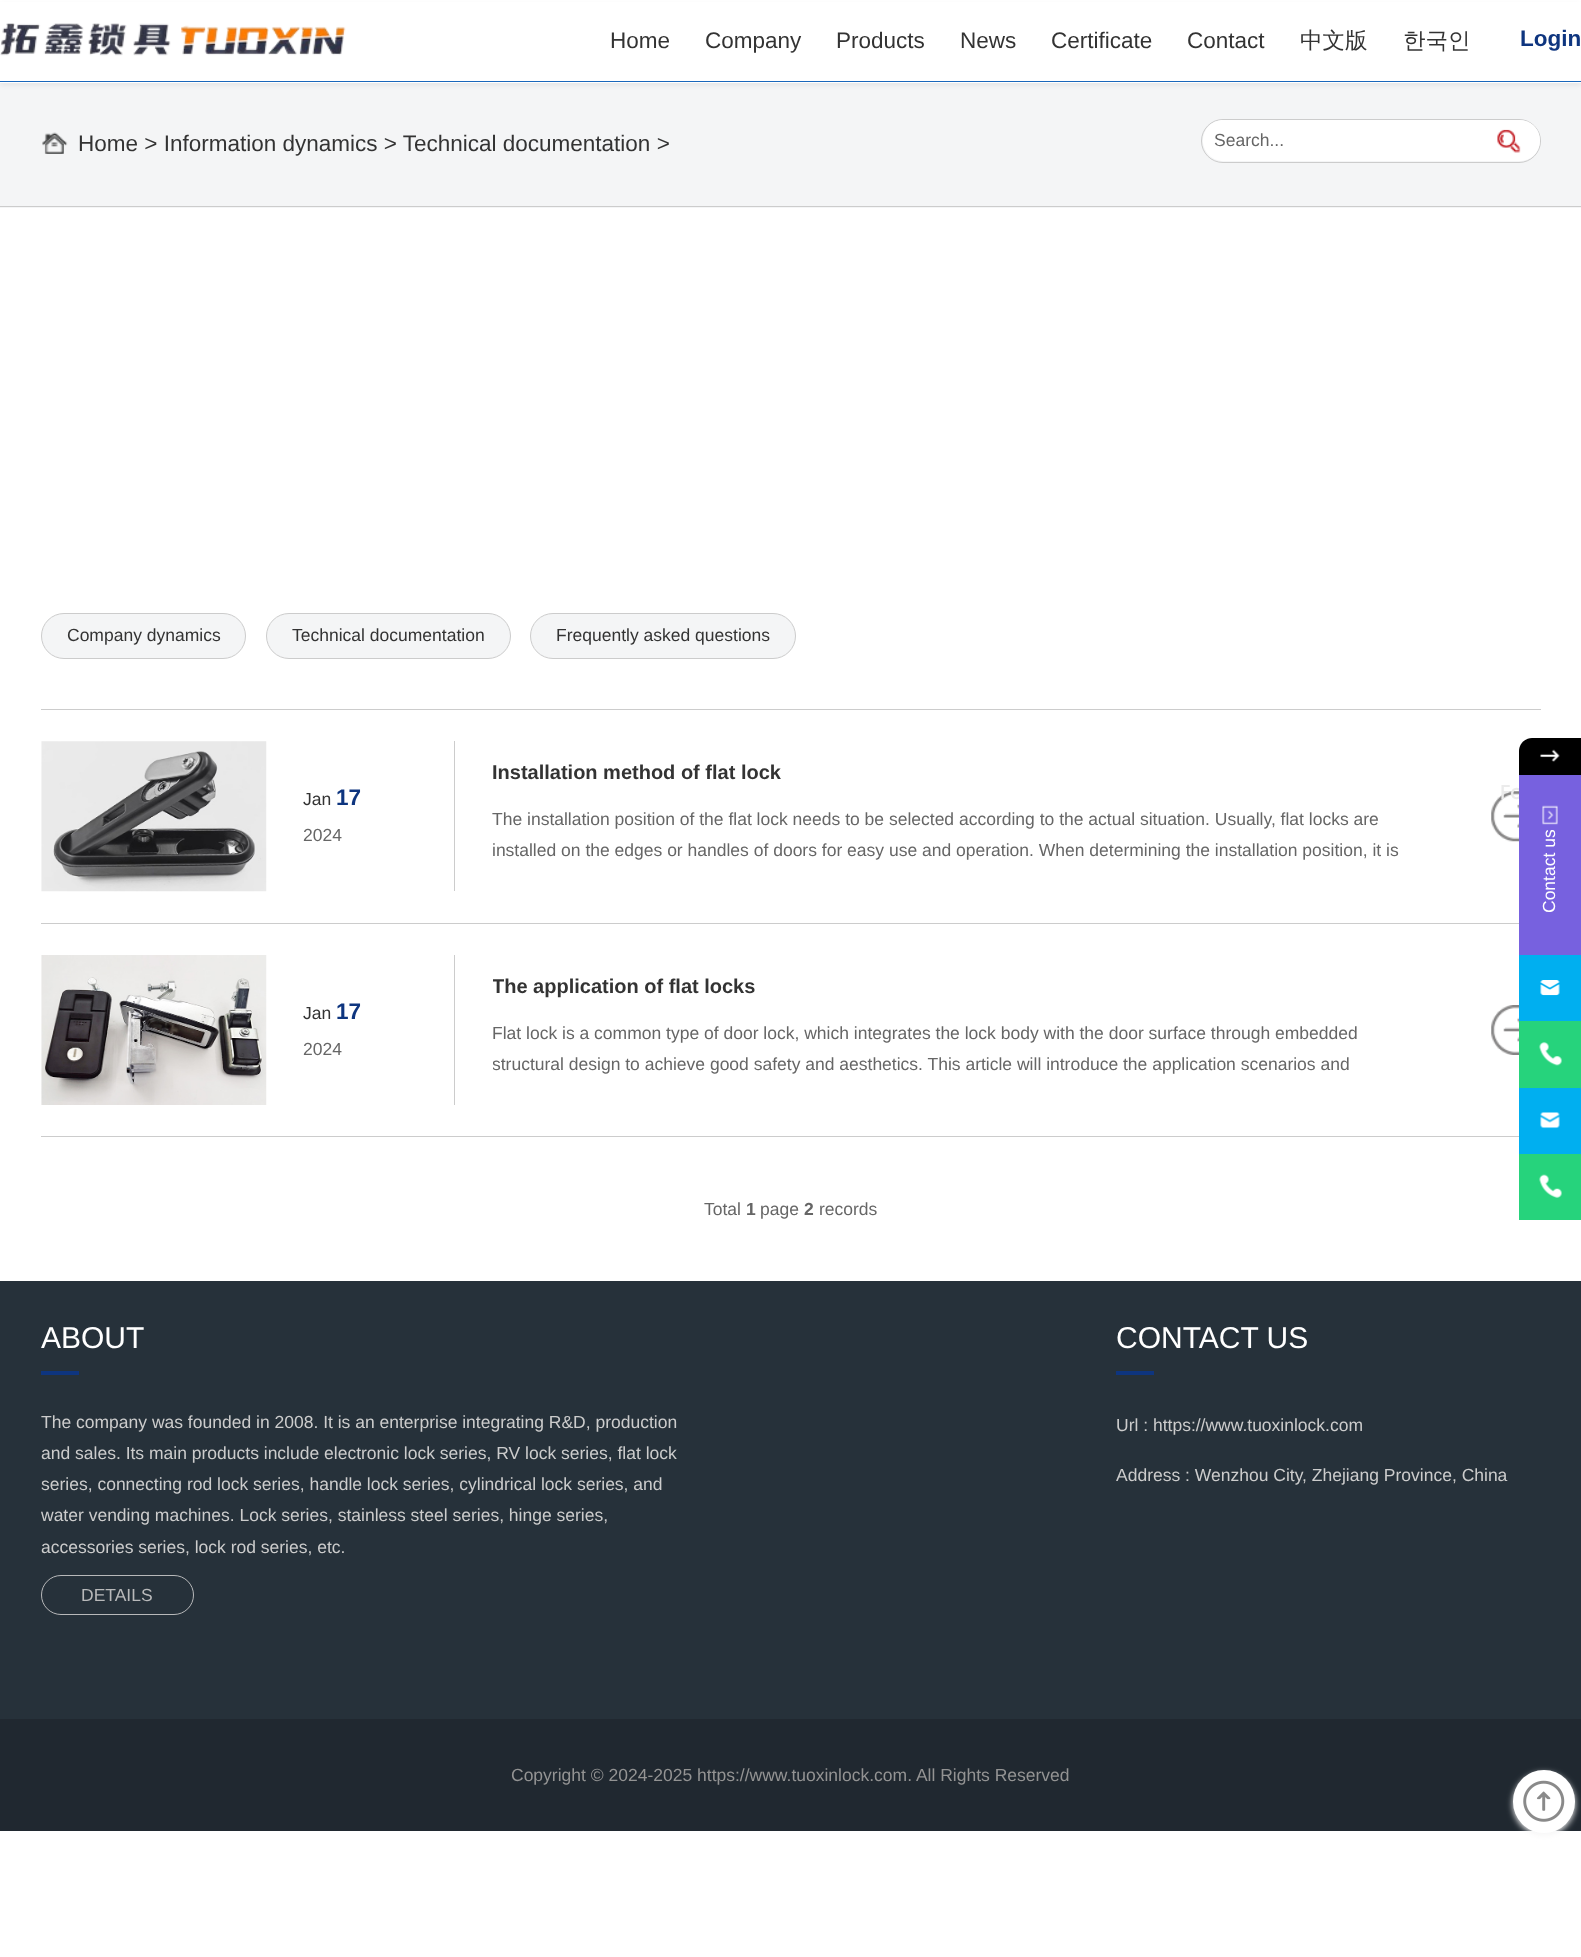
<?xml version="1.0" encoding="UTF-8"?>
<svg xmlns="http://www.w3.org/2000/svg" width="1581" height="1957">
    <defs>
        <filter id="blur1" x="-50%" y="-200%" width="200%" height="500%"><feGaussianBlur stdDeviation="2"/></filter>
        <clipPath id="clip1"><rect x="493" y="968" width="937" height="37"/></clipPath>
        <clipPath id="clip2"><rect x="493" y="1018" width="937" height="62"/></clipPath>
        <clipPath id="clip3"><rect x="1481" y="738" width="38" height="500" rx="19"/></clipPath>
        <filter id="blur2" x="-50%" y="-200%" width="200%" height="500%"><feGaussianBlur stdDeviation="3"/></filter>
    </defs>
    <rect width="100%" height="100%" fill="#FFFFFF"/>
    <rect x="0" y="83" width="1581" height="125" fill="#F4F5F6"/>
    <rect x="0" y="4" width="1581" height="82" fill="#000000" fill-opacity="0.05" filter="url(#blur1)"/>
    <rect x="0" y="2" width="1581" height="81" fill="#FFFFFF"/>
    <rect x="0" y="81" width="1581" height="1" fill="#1A67BB"/>
    <image x="0" y="23" width="346" height="33" href="img_01.png"/>
    <text x="610" y="48" font-family="Liberation Sans" font-size="22.5" fill="#333333">Home</text>
    <text x="705" y="48" font-family="Liberation Sans" font-size="22.5" fill="#333333">Company</text>
    <text x="836" y="48" font-family="Liberation Sans" font-size="22.5" fill="#333333">Products</text>
    <text x="960" y="48" font-family="Liberation Sans" font-size="22.5" fill="#333333">News</text>
    <text x="1051" y="48" font-family="Liberation Sans" font-size="22.5" fill="#333333">Certificate</text>
    <text x="1187" y="48" font-family="Liberation Sans" font-size="22.5" fill="#333333">Contact</text>
    <text x="1300" y="48" font-family="WenQuanYi Zen Hei" font-size="22.5" font-weight="500" fill="#333333">中文版</text>
    <text x="1403" y="48" font-family="WenQuanYi Zen Hei" font-size="22.5" font-weight="500" fill="#333333">한국인</text>
    <text x="1520" y="46" font-family="Liberation Sans" font-size="22.5" font-weight="700" fill="#0E357F">Login</text>
    <rect x="0" y="206" width="1581" height="1" fill="#CCCCCC"/>
    <image x="42" y="132" width="26" height="22" href="img_02.png"/>
    <text x="78" y="151" font-family="Liberation Sans" font-size="22.5" fill="#333333">Home &gt; Information dynamics &gt; Technical documentation &gt;</text>
    <rect x="1201.5" y="119.5" width="339" height="43" rx="21.5" fill="none" stroke="#CCCCCC"/>
    <path d="M 1223.5 120 H 1478 V 161 H 1223.5 C 1212 161 1203 152 1203 140.5 C 1203 129 1212 120 1223.5 120 Z" fill="#FFFFFF"/>
    <text x="1214" y="146" font-family="Liberation Sans" font-size="17.5" fill="#666666">Search...</text>
    <path d="M 1478 120 H 1519.5 C 1531 120 1540 129 1540 140.5 C 1540 152 1531 161 1519.5 161 H 1478 Z" fill="#FFFFFF"/>
    <image x="1497" y="129" width="24" height="24" href="img_03.png"/>
    <rect x="41.5" y="613.5" width="204" height="45" rx="22.5" fill="#F4F5F6" stroke="#CCCCCC"/>
    <text x="67" y="641" font-family="Liberation Sans" font-size="17.5" fill="#333333">Company dynamics</text>
    <rect x="266.5" y="613.5" width="244" height="45" rx="22.5" fill="#F4F5F6" stroke="#CCCCCC"/>
    <text x="292" y="641" font-family="Liberation Sans" font-size="17.5" fill="#333333">Technical documentation</text>
    <rect x="530.5" y="613.5" width="265" height="45" rx="22.5" fill="#F4F5F6" stroke="#CCCCCC"/>
    <text x="556" y="641" font-family="Liberation Sans" font-size="17.5" fill="#333333">Frequently asked questions</text>
    <rect x="41" y="709" width="1500" height="1" fill="#CCCCCC"/>
    <rect x="41" y="923" width="1478" height="1" fill="#CCCCCC"/>
    <image x="41" y="741" width="226" height="151" href="img_04.png"/>
    <rect x="454" y="741" width="1" height="150" fill="#CCCCCC"/>
    <text x="303" y="805" font-family="Liberation Sans" font-size="17.5" fill="#333333">Jan</text>
    <text x="336" y="805" font-family="Liberation Sans" font-size="22.5" font-weight="700" fill="#0E357F">17</text>
    <text x="303" y="841" font-family="Liberation Sans" font-size="17.5" fill="#666666">2024</text>
    <text x="492" y="779" font-family="Liberation Sans" font-size="20" font-weight="700" fill="#333333">Installation method of flat lock</text>
    <text font-family="Liberation Sans" font-size="17.5" fill="#666666">
        <tspan x="492" y="825">The installation position of the flat lock needs to be selected according to the actual situation. Usually, flat locks are</tspan>
        <tspan x="492" y="856">installed on the edges or handles of doors for easy use and operation. When determining the installation position, it is</tspan>
    </text>
    <image x="1491" y="791" width="28" height="51" href="img_05.png"/>
    <rect x="41" y="1136" width="1478" height="1" fill="#CCCCCC"/>
    <image x="41" y="955" width="226" height="150" href="img_06.png"/>
    <rect x="454" y="955" width="1" height="150" fill="#CCCCCC"/>
    <text x="303" y="1019" font-family="Liberation Sans" font-size="17.5" fill="#333333">Jan</text>
    <text x="336" y="1019" font-family="Liberation Sans" font-size="22.5" font-weight="700" fill="#0E357F">17</text>
    <text x="303" y="1055" font-family="Liberation Sans" font-size="17.5" fill="#666666">2024</text>
    <g clip-path="url(#clip1)">
        <text x="492" y="993" font-family="Liberation Sans" font-size="20" font-weight="700" fill="#333333">The application of flat locks</text>
    </g>
    <text x="492" y="1039" font-family="Liberation Sans" font-size="17.5" fill="#666666">Flat lock is a common type of door lock, which integrates the lock body with the door surface through embedded</text>
    <g clip-path="url(#clip2)">
        <text x="492" y="1070" font-family="Liberation Sans" font-size="17.5" fill="#666666">structural design to achieve good safety and aesthetics. This article will introduce the application scenarios and</text>
    </g>
    <image x="1491" y="1005" width="28" height="50" href="img_07.png"/>
    <text x="704" y="1215" font-family="Liberation Sans" font-size="17.5" fill="#666666">Total</text>
    <text x="746" y="1215" font-family="Liberation Sans" font-size="17.5" font-weight="700" fill="#666666">1</text>
    <text x="760" y="1215" font-family="Liberation Sans" font-size="17.5" fill="#666666">page</text>
    <text x="804" y="1215" font-family="Liberation Sans" font-size="17.5" font-weight="700" fill="#666666">2</text>
    <text x="819" y="1215" font-family="Liberation Sans" font-size="17.5" fill="#666666">records</text>
    <path d="M 1532 738 H 1581 V 1220 H 1532 C 1525 1220 1519 1214 1519 1207 V 751 C 1519 744 1525 738 1532 738 Z" fill="#000000"/>
    <image x="1540" y="749" width="20" height="13" href="img_08.png"/>
    <rect x="1519" y="775" width="62" height="180" fill="#7761DF"/>
    <g clip-path="url(#clip3)">
        <text x="1500" y="799" font-family="Poppins" font-size="20" font-weight="500" fill="#EBEBEB">Fo</text>
    </g>
    <image x="1542" y="805" width="16" height="20" href="img_09.png"/>
    <text x="1555" y="913" transform="rotate(-90 1555 913)" font-family="Liberation Sans" font-size="17.5" fill="#FFFFFF">Contact us</text>
    <rect x="1519" y="955" width="62" height="66" fill="#00AFF0"/>
    <image x="1540" y="980" width="20" height="16" href="img_10.png"/>
    <rect x="1519" y="1021" width="62" height="67" fill="#26D37C"/>
    <image x="1539" y="1042" width="23" height="24" href="img_11.png"/>
    <rect x="1519" y="1088" width="62" height="66" fill="#00AFF0"/>
    <image x="1540" y="1112" width="20" height="17" href="img_12.png"/>
    <rect x="1519" y="1154" width="62" height="66" fill="#26D37C"/>
    <image x="1539" y="1174" width="23" height="24" href="img_13.png"/>
    <rect x="0" y="1281" width="1581" height="438" fill="#26313A"/>
    <text x="41" y="1348" font-family="Liberation Sans" font-size="30" fill="#FFFFFF">ABOUT</text>
    <rect x="41" y="1371" width="38" height="4" fill="#0E357F"/>
    <text font-family="Liberation Sans" font-size="17.5" fill="#CCCCCC">
        <tspan x="41" y="1428">The company was founded in 2008. It is an enterprise integrating R&amp;D, production</tspan>
        <tspan x="41" y="1459">and sales. Its main products include electronic lock series, RV lock series, flat lock</tspan>
        <tspan x="41" y="1490">series, connecting rod lock series, handle lock series, cylindrical lock series, and</tspan>
        <tspan x="41" y="1521">water vending machines. Lock series, stainless steel series, hinge series,</tspan>
        <tspan x="41" y="1553">accessories series, lock rod series, etc.</tspan>
    </text>
    <rect x="41.5" y="1575.5" width="152" height="39" rx="19.5" fill="none" stroke="#B8B9BA"/>
    <text x="81" y="1601" font-family="Liberation Sans" font-size="17.5" fill="#B8B9BA">DETAILS</text>
    <text x="1116" y="1348" font-family="Liberation Sans" font-size="30" fill="#FFFFFF">CONTACT US</text>
    <rect x="1116" y="1371" width="38" height="4" fill="#0E357F"/>
    <text x="1116" y="1431" font-family="Liberation Sans" font-size="17.5" fill="#CCCCCC">Url : https://www.tuoxinlock.com</text>
    <text x="1116" y="1481" font-family="Liberation Sans" font-size="17.5" fill="#CCCCCC">Address : Wenzhou City, Zhejiang Province, China</text>
    <rect x="0" y="1719" width="1581" height="112" fill="#202830"/>
    <text x="511" y="1781" font-family="Liberation Sans" font-size="17.5" fill="#939393">Copyright © 2024-2025 https://www.tuoxinlock.com. All Rights Reserved</text>
    <rect x="1513" y="1773" width="62" height="62" rx="31" fill="#F5F5F5" filter="url(#blur2)"/>
    <rect x="1513" y="1770" width="62" height="63" rx="31" fill="#FFFFFF"/>
    <image x="1523" y="1780" width="42" height="42" href="img_14.png"/>
</svg>
